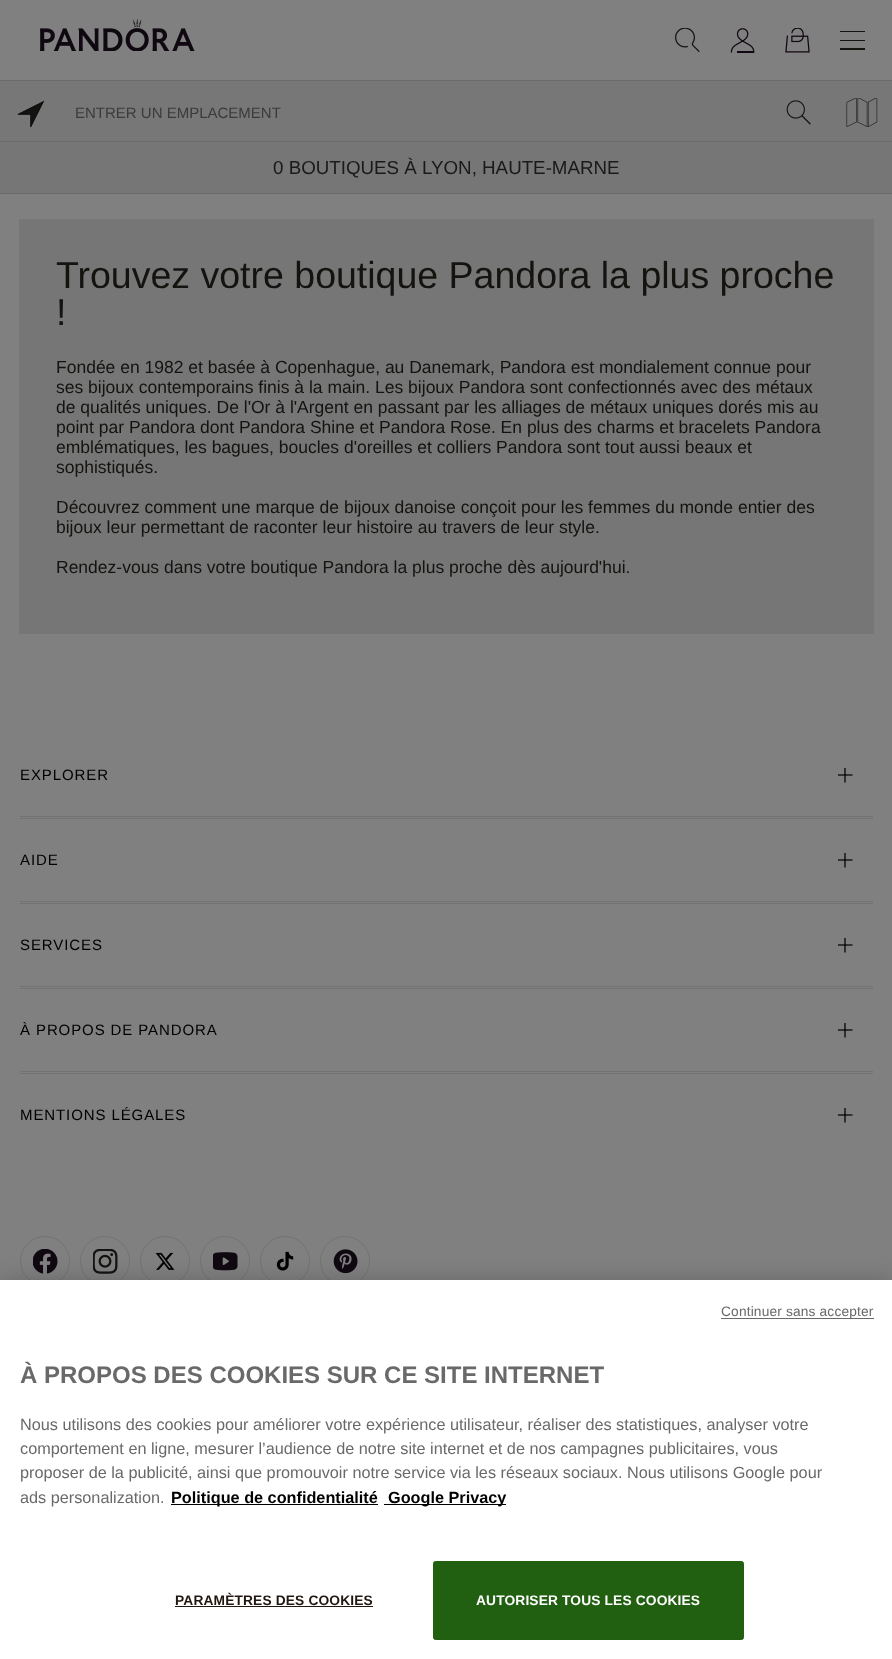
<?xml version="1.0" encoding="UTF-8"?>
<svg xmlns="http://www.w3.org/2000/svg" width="892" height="1659">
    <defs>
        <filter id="blur1" x="-50%" y="-200%" width="200%" height="500%"><feGaussianBlur stdDeviation="11"/></filter>
    </defs>
    <rect width="100%" height="100%" fill="#808080"/>
    <image x="40" y="19" width="155" height="32" href="img_01.png"/>
    <image x="675" y="28" width="25" height="25" href="img_02.png"/>
    <image x="730" y="28" width="25" height="25" href="img_03.png"/>
    <image x="785" y="28" width="25" height="25" href="img_04.png"/>
    <rect x="840" y="31" width="25" height="1" fill="#141310"/>
    <rect x="840" y="40" width="25" height="1" fill="#141310"/>
    <rect x="840" y="48" width="25" height="2" fill="#141310"/>
    <rect x="0" y="81" width="892" height="62" fill="#787777"/>
    <rect x="0" y="80" width="892" height="1" fill="#6C6B6B"/>
    <rect x="0" y="141" width="892" height="1" fill="#6C6B6B"/>
    <image x="17" y="100" width="28" height="28" href="img_05.png"/>
    <text x="75" y="118" font-family="Liberation Sans" font-size="15" fill="#3B3B3B">ENTRER UN EMPLACEMENT</text>
    <image x="786" y="100" width="25" height="25" href="img_06.png"/>
    <image x="846" y="98" width="32" height="30" href="img_07.png"/>
    <rect x="0" y="143" width="892" height="50" fill="#767676"/>
    <rect x="0" y="193" width="892" height="1" fill="#69686A"/>
    <text x="273" y="174" font-family="Liberation Sans" font-size="18.75" fill="#1A1A1A">0 BOUTIQUES À LYON, HAUTE-MARNE</text>
    <rect x="19" y="219" width="855" height="415" fill="#767676"/>
    <text font-family="Liberation Sans" font-size="37.5" fill="#141310">
        <tspan x="56" y="288">Trouvez votre boutique Pandora la plus proche</tspan>
        <tspan x="56" y="325">!</tspan>
    </text>
    <text font-family="Liberation Sans" font-size="17.5" fill="#141310">
        <tspan x="56" y="373">Fondée en 1982 et basée à Copenhague, au Danemark, Pandora est mondialement connue pour</tspan>
        <tspan x="56" y="393">ses bijoux contemporains finis à la main. Les bijoux Pandora sont confectionnés avec des métaux</tspan>
        <tspan x="56" y="413">de qualités uniques. De l'Or à l'Argent en passant par les alliages de métaux uniques dorés mis au</tspan>
        <tspan x="56" y="433">point par Pandora dont Pandora Shine et Pandora Rose. En plus des charms et bracelets Pandora</tspan>
        <tspan x="56" y="453">emblématiques, les bagues, boucles d'oreilles et colliers Pandora sont tout aussi beaux et</tspan>
        <tspan x="56" y="473">sophistiqués.</tspan>
    </text>
    <text font-family="Liberation Sans" font-size="17.5" fill="#141310">
        <tspan x="56" y="513">Découvrez comment une marque de bijoux danoise conçoit pour les femmes du monde entier des</tspan>
        <tspan x="56" y="533">bijoux leur permettant de raconter leur histoire au travers de leur style.</tspan>
    </text>
    <text x="56" y="573" font-family="Liberation Sans" font-size="17.5" fill="#141310">Rendez-vous dans votre boutique Pandora la plus proche dès aujourd'hui.</text>
    <rect x="20" y="816" width="853" height="1" fill="#737373"/>
    <text x="20" y="780" font-family="Liberation Sans" font-size="15" letter-spacing="0.9" fill="#000000">EXPLORER</text>
    <image x="838" y="768" width="15" height="15" href="img_08.png"/>
    <rect x="20" y="818" width="853" height="1" fill="#737373"/>
    <rect x="20" y="901" width="853" height="1" fill="#737373"/>
    <text x="20" y="865" font-family="Liberation Sans" font-size="15" letter-spacing="0.9" fill="#000000">AIDE</text>
    <image x="838" y="853" width="15" height="15" href="img_08.png"/>
    <rect x="20" y="903" width="853" height="1" fill="#737373"/>
    <rect x="20" y="986" width="853" height="1" fill="#737373"/>
    <text x="20" y="950" font-family="Liberation Sans" font-size="15" letter-spacing="0.9" fill="#000000">SERVICES</text>
    <image x="838" y="938" width="15" height="15" href="img_08.png"/>
    <rect x="20" y="988" width="853" height="1" fill="#737373"/>
    <rect x="20" y="1071" width="853" height="1" fill="#737373"/>
    <text x="20" y="1035" font-family="Liberation Sans" font-size="15" letter-spacing="0.9" fill="#000000">À PROPOS DE PANDORA</text>
    <image x="838" y="1023" width="15" height="15" href="img_08.png"/>
    <rect x="20" y="1073" width="853" height="1" fill="#737373"/>
    <text x="20" y="1120" font-family="Liberation Sans" font-size="15" letter-spacing="0.9" fill="#000000">MENTIONS LÉGALES</text>
    <image x="838" y="1108" width="15" height="15" href="img_08.png"/>
    <circle cx="45" cy="1261" r="24.5" fill="none" stroke="#737373"/>
    <image x="33" y="1249" width="25" height="25" href="img_09.png"/>
    <circle cx="105" cy="1261" r="24.5" fill="none" stroke="#737373"/>
    <image x="93" y="1249" width="25" height="25" href="img_10.png"/>
    <circle cx="165" cy="1261" r="24.5" fill="none" stroke="#737373"/>
    <image x="155" y="1252" width="20" height="18" href="img_11.png"/>
    <circle cx="225" cy="1261" r="24.5" fill="none" stroke="#737373"/>
    <image x="213" y="1252" width="25" height="19" href="img_12.png"/>
    <circle cx="285" cy="1261" r="24.5" fill="none" stroke="#737373"/>
    <image x="276" y="1251" width="18" height="20" href="img_13.png"/>
    <circle cx="345" cy="1261" r="24.5" fill="none" stroke="#737373"/>
    <image x="333" y="1249" width="25" height="25" href="img_14.png"/>
    <rect x="0" y="1280" width="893" height="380" fill="#000000" fill-opacity="0.2" filter="url(#blur1)"/>
    <rect x="0" y="1280" width="892" height="379" fill="#FFFFFF"/>
    <rect x="721" y="1318" width="153" height="1" fill="#696969"/>
    <text x="721" y="1316" font-family="Liberation Sans" font-size="13.75" letter-spacing="0.15" fill="#696969">Continuer sans accepter</text>
    <text x="20" y="1383" font-family="Liberation Sans" font-size="24" font-weight="700" fill="#696969">À PROPOS DES COOKIES SUR CE SITE INTERNET</text>
    <text font-family="Liberation Sans" font-size="16.25" fill="#696969">
        <tspan x="20" y="1430">Nous utilisons des cookies pour améliorer votre expérience utilisateur, réaliser des statistiques, analyser votre</tspan>
        <tspan x="20" y="1454">comportement en ligne, mesurer l’audience de notre site internet et de nos campagnes publicitaires, vous</tspan>
        <tspan x="20" y="1478">proposer de la publicité, ainsi que promouvoir notre service via les réseaux sociaux. Nous utilisons Google pour</tspan>
        <tspan x="20" y="1503">ads personalization.</tspan>
    </text>
    <rect x="171" y="1504" width="207" height="1" fill="#000000"/>
    <text x="171" y="1503" font-family="Liberation Sans" font-size="16.25" font-weight="700" fill="#000000">Politique de confidentialité</text>
    <rect x="384" y="1504" width="122" height="1" fill="#000000"/>
    <text x="388" y="1503" font-family="Liberation Sans" font-size="16.25" font-weight="700" fill="#000000">Google Privacy</text>
    <text x="175" y="1605" font-family="Liberation Sans" font-size="13.75" font-weight="700" letter-spacing="0.15" fill="#211710">PARAMÈTRES DES COOKIES</text>
    <rect x="175" y="1606" width="198" height="1" fill="#211710"/>
    <rect x="433.5" y="1561.5" width="310" height="78" rx="2" fill="#215F11" stroke="#215F11"/>
    <text x="476" y="1605" font-family="Liberation Sans" font-size="13.75" font-weight="700" letter-spacing="0.15" fill="#FFFFFF">AUTORISER TOUS LES COOKIES</text>
</svg>
